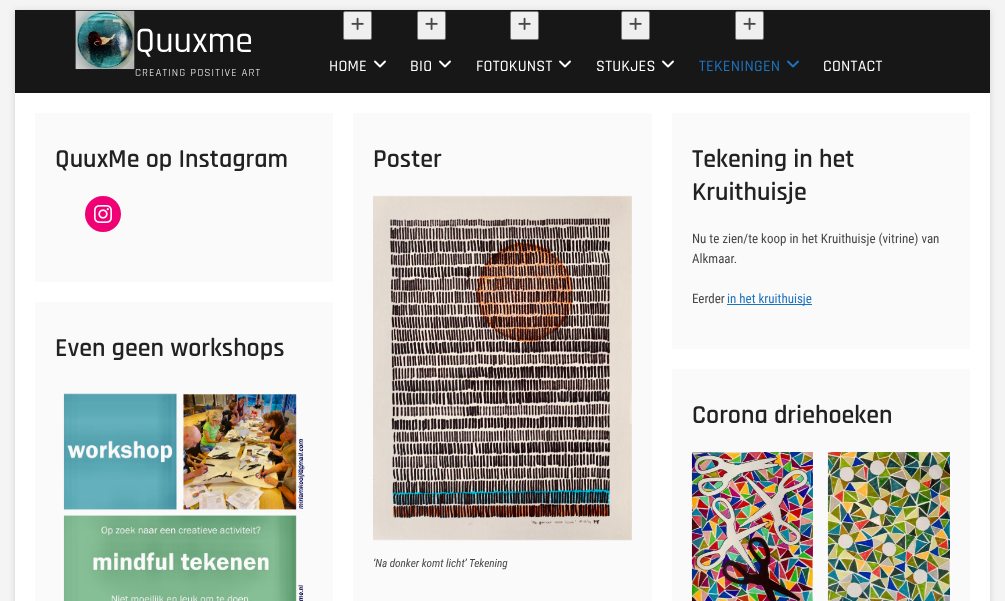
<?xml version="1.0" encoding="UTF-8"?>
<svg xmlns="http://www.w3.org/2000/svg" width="1005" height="601">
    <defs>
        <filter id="blur1" x="-50%" y="-200%" width="200%" height="500%"><feGaussianBlur stdDeviation="3"/></filter>
    </defs>
    <rect width="100%" height="100%" fill="#F4F4F4"/>
    <rect x="15" y="11" width="975" height="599" fill="#000000" fill-opacity="0.15" filter="url(#blur1)"/>
    <rect x="15" y="93" width="975" height="508" fill="#FFFFFF"/>
    <rect x="15" y="10" width="975" height="83" fill="#171717"/>
    <image x="75" y="10" width="60" height="60" href="img_01.png"/>
    <text x="135" y="52" font-family="Rajdhani" font-size="36" font-weight="500" fill="#FFFFFF">Quuxme</text>
    <text x="135" y="76" font-family="Rajdhani" font-size="11" letter-spacing="1.1" fill="#FFFFFF">CREATING POSITIVE ART</text>
    <rect x="343.5" y="11.5" width="28" height="28" rx="1.5" fill="#EFEFEF" stroke="#767676"/>
    <image x="351" y="17" width="13" height="13" href="img_02.png"/>
    <text x="329" y="71" font-family="Rajdhani" font-size="16" font-weight="500" letter-spacing="0.25" fill="#FFFFFF">HOME</text>
    <image x="374" y="60" width="12" height="8" href="img_03.png"/>
    <rect x="417.5" y="11.5" width="28" height="28" rx="1.5" fill="#EFEFEF" stroke="#767676"/>
    <image x="425" y="17" width="13" height="13" href="img_02.png"/>
    <text x="410" y="71" font-family="Rajdhani" font-size="16" font-weight="500" letter-spacing="0.25" fill="#FFFFFF">BIO</text>
    <image x="439" y="60" width="12" height="8" href="img_03.png"/>
    <rect x="510.5" y="11.5" width="28" height="28" rx="1.5" fill="#EFEFEF" stroke="#767676"/>
    <image x="518" y="17" width="13" height="13" href="img_02.png"/>
    <text x="476" y="71" font-family="Rajdhani" font-size="16" font-weight="500" letter-spacing="0.25" fill="#FFFFFF">FOTOKUNST</text>
    <image x="559" y="60" width="12" height="8" href="img_03.png"/>
    <rect x="621.5" y="11.5" width="28" height="28" rx="1.5" fill="#EFEFEF" stroke="#767676"/>
    <image x="629" y="17" width="13" height="13" href="img_02.png"/>
    <text x="596" y="71" font-family="Rajdhani" font-size="16" font-weight="500" letter-spacing="0.25" fill="#FFFFFF">STUKJES</text>
    <image x="662" y="60" width="12" height="8" href="img_03.png"/>
    <rect x="735.5" y="11.5" width="28" height="28" rx="1.5" fill="#EFEFEF" stroke="#767676"/>
    <image x="743" y="17" width="13" height="13" href="img_02.png"/>
    <text x="699" y="71" font-family="Rajdhani" font-size="16" font-weight="500" letter-spacing="0.25" fill="#1E73BE">TEKENINGEN</text>
    <image x="787" y="60" width="12" height="8" href="img_04.png"/>
    <text x="823" y="71" font-family="Rajdhani" font-size="16" font-weight="500" letter-spacing="0.25" fill="#FFFFFF">CONTACT</text>
    <rect x="35" y="113" width="298" height="169" fill="#FAFAFA"/>
    <text x="55" y="167" font-family="Rajdhani" font-size="26" font-weight="600" fill="#222222">QuuxMe op Instagram</text>
    <circle cx="103" cy="214" r="18" fill="#F00075"/>
    <image x="94" y="205" width="18" height="18" href="img_05.png"/>
    <rect x="353" y="113" width="299" height="488" fill="#FAFAFA"/>
    <text x="373" y="167" font-family="Rajdhani" font-size="26" font-weight="600" fill="#222222">Poster</text>
    <image x="373" y="195" width="259" height="346" href="img_06.png"/>
    <text x="373" y="567" font-family="Roboto Condensed" font-size="11.25" font-style="italic" fill="#484848">‘Na donker komt licht’ Tekening</text>
    <rect x="672" y="113" width="298" height="236" fill="#FAFAFA"/>
    <text font-family="Rajdhani" font-size="26" font-weight="600" fill="#222222">
        <tspan x="692" y="167">Tekening in het</tspan>
        <tspan x="692" y="200">Kruithuisje</tspan>
    </text>
    <text font-family="Roboto Condensed" font-size="13" fill="#484848">
        <tspan x="692" y="243">Nu te zien/te koop in het Kruithuisje (vitrine) van</tspan>
        <tspan x="692" y="263">Alkmaar.</tspan>
    </text>
    <text x="692" y="303" font-family="Roboto Condensed" font-size="13" fill="#484848">Eerder</text>
    <rect x="727" y="304" width="85" height="1" fill="#1E73BE"/>
    <text x="727" y="303" font-family="Roboto Condensed" font-size="13" fill="#1E73BE">in het kruithuisje</text>
    <rect x="35" y="302" width="298" height="299" fill="#FAFAFA"/>
    <text x="55" y="356" font-family="Rajdhani" font-size="26" font-weight="600" fill="#222222">Even geen workshops</text>
    <image x="63" y="393" width="242" height="208" href="img_07.png"/>
    <rect x="672" y="369" width="298" height="232" fill="#FAFAFA"/>
    <text x="692" y="423" font-family="Rajdhani" font-size="26" font-weight="600" fill="#222222">Corona driehoeken</text>
    <image x="691" y="452" width="122" height="149" href="img_08.png"/>
    <image x="827" y="452" width="123" height="149" href="img_09.png"/>
</svg>
